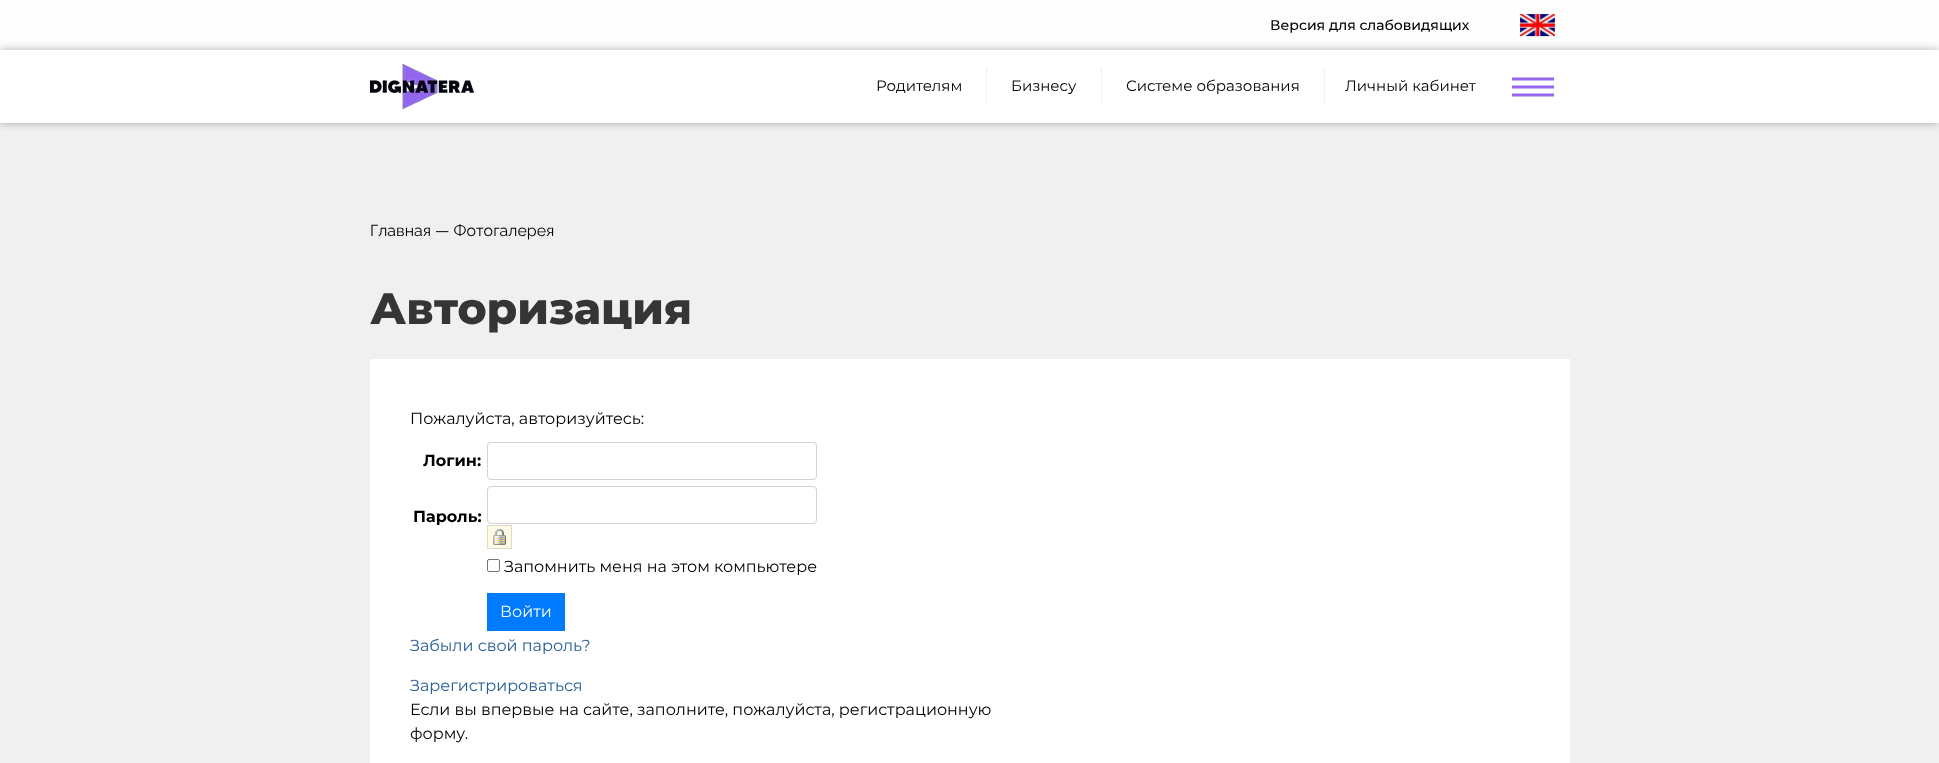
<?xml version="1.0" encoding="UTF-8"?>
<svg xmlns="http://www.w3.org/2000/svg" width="1939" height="763">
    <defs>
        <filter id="blur1" x="-50%" y="-200%" width="200%" height="500%"><feGaussianBlur stdDeviation="4"/></filter>
    </defs>
    <rect width="100%" height="100%" fill="#F0F0F0"/>
    <rect x="0" y="0" width="1939" height="50" fill="#FDFDFD"/>
    <text x="1270" y="30" font-family="Montserrat" font-size="14" font-weight="500" fill="#000000">Версия для слабовидящих</text>
    <image x="1520" y="14" width="35" height="23" href="img_01.png"/>
    <rect x="0" y="50" width="1939" height="73" fill="#000000" fill-opacity="0.3" filter="url(#blur1)"/>
    <rect x="0" y="50" width="1939" height="73" fill="#FFFFFF"/>
    <image x="370" y="64" width="104" height="45" href="img_02.png"/>
    <rect x="986" y="67" width="1" height="38" fill="#F0F0F0"/>
    <text x="876" y="91" font-family="Montserrat" font-size="15" fill="#000000">Родителям</text>
    <rect x="1101" y="67" width="1" height="38" fill="#F0F0F0"/>
    <text x="1011" y="91" font-family="Montserrat" font-size="15" fill="#000000">Бизнесу</text>
    <rect x="1324" y="67" width="1" height="38" fill="#F0F0F0"/>
    <text x="1126" y="91" font-family="Montserrat" font-size="15" fill="#000000">Системе образования</text>
    <text x="1345" y="91" font-family="Montserrat" font-size="15" fill="#000000">Личный кабинет</text>
    <path d="M 1512 79 H 1554 M 1512 87 H 1554 M 1512 95 H 1554" fill="none" stroke="#9465ED" stroke-width="3"/>
    <text x="370" y="236" font-family="Raleway" font-size="16" fill="#000000">Главная</text>
    <text x="435" y="236" font-family="Raleway" font-size="16" fill="#000000">— Фотогалерея</text>
    <text x="370" y="324" font-family="Montserrat" font-size="44" font-weight="800" fill="#353535">Авторизация</text>
    <rect x="370" y="359" width="1200" height="404" fill="#FFFFFF"/>
    <text x="410" y="424" font-family="Montserrat" font-size="16" fill="#000000">Пожалуйста, авторизуйтесь:</text>
    <text x="423" y="466" font-family="Montserrat" font-size="16" font-weight="700" fill="#000000">Логин:</text>
    <rect x="487.5" y="442.5" width="329" height="37" rx="3.5" fill="none" stroke="#CED4DA"/>
    <text x="413" y="522" font-family="Montserrat" font-size="16" font-weight="700" fill="#000000">Пароль:</text>
    <rect x="487.5" y="486.5" width="329" height="37" rx="3.5" fill="none" stroke="#CED4DA"/>
    <rect x="487.5" y="525.5" width="24" height="23" fill="#FFFAE3" stroke="#DEDBC8"/>
    <image x="493" y="529" width="13" height="16" href="img_03.png"/>
    <rect x="487.5" y="559.5" width="12" height="12" rx="1.5" fill="none" stroke="#767676"/>
    <text x="504" y="572" font-family="Montserrat" font-size="16" fill="#000000">Запомнить меня на этом компьютере</text>
    <rect x="487" y="593" width="78" height="38" fill="#007BFF"/>
    <text x="500" y="617" font-family="Montserrat" font-size="16" fill="#FFFFFF">Войти</text>
    <text x="410" y="651" font-family="Montserrat" font-size="16" fill="#265E93">Забыли свой пароль?</text>
    <text x="410" y="691" font-family="Montserrat" font-size="16" fill="#265E93">Зарегистрироваться</text>
    <text font-family="Montserrat" font-size="16" fill="#000000">
        <tspan x="410" y="715">Если вы впервые на сайте, заполните, пожалуйста, регистрационную</tspan>
        <tspan x="410" y="739">форму.</tspan>
    </text>
</svg>
